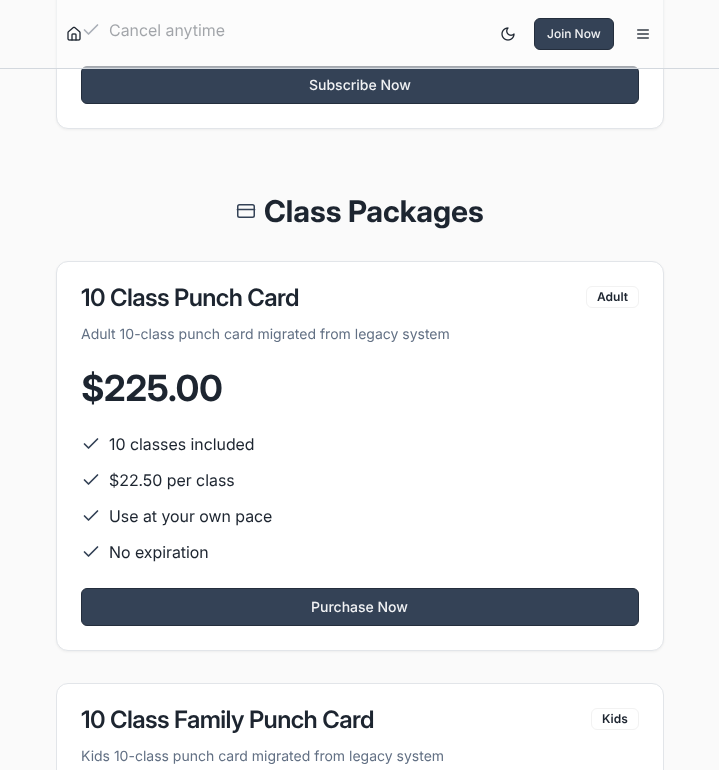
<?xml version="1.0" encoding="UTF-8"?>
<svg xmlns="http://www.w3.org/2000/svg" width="719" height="770">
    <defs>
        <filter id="blur1" x="-50%" y="-200%" width="200%" height="500%"><feGaussianBlur stdDeviation="1"/></filter>
    </defs>
    <rect width="100%" height="100%" fill="#FAFAFA"/>
    <rect x="56" y="-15" width="608" height="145" rx="12" fill="#000000" fill-opacity="0.05" filter="url(#blur1)"/>
    <rect x="56.5" y="-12.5" width="607" height="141" rx="11.5" fill="#FFFFFF" stroke="#E2E5E9"/>
    <path d="M 97.5 25 L 88.5 34 L 84.5 30" fill="none" stroke="#344256" stroke-width="1.7" stroke-linecap="round" stroke-linejoin="round"/>
    <text x="109" y="36" font-family="Inter" font-size="16" fill="#1D2530">Cancel anytime</text>
    <rect x="81.5" y="66.5" width="557" height="37" rx="5.5" fill="#344256" stroke="#242E3D"/>
    <text x="309" y="90" font-family="Inter" font-size="14" font-weight="500" fill="#F1F2F4">Subscribe Now</text>
    <rect x="237.75" y="204.75" width="16.5" height="12.5" rx="1.75" fill="none" stroke="#344256" stroke-width="1.5"/>
    <path d="M 237.5 209.5 H 254.5" fill="none" stroke="#344256" stroke-width="1.7" stroke-linecap="round" stroke-linejoin="round"/>
    <text x="264" y="222" font-family="Inter" font-size="30" font-weight="700" fill="#1D2530">Class Packages</text>
    <rect x="56" y="262" width="608" height="390" rx="12" fill="#000000" fill-opacity="0.05" filter="url(#blur1)"/>
    <rect x="56.5" y="261.5" width="607" height="389" rx="11.5" fill="#FFFFFF" stroke="#E2E5E9"/>
    <text x="81" y="306" font-family="Inter" font-size="24" font-weight="600" letter-spacing="-0.6" fill="#1D2530">10 Class Punch Card</text>
    <rect x="586.5" y="286.5" width="52" height="21" rx="5.5" fill="none" stroke="#F2F2F2"/>
    <text x="597" y="301" font-family="'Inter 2'" font-size="12" font-weight="600" fill="#1D2530">Adult</text>
    <text x="81" y="339" font-family="'Inter 2'" font-size="14" fill="#627084">Adult 10-class punch card migrated from legacy system</text>
    <text x="81" y="401" font-family="'Inter 2'" font-size="36" font-weight="700" fill="#1D2530">$</text>
    <text x="104" y="401" font-family="'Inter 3'" font-size="36" font-weight="700" fill="#1D2530">225.00</text>
    <path d="M 97.5 439 L 88.5 448 L 84.5 444 M 97.5 475 L 88.5 484 L 84.5 480" fill="none" stroke="#344256" stroke-width="1.7" stroke-linecap="round" stroke-linejoin="round"/>
    <text x="109" y="450" font-family="Inter" font-size="16" fill="#1D2530">10 classes included</text>
    <text x="109" y="486" font-family="Inter" font-size="16" fill="#1D2530">$22.50 per class</text>
    <path d="M 97.5 511 L 88.5 520 L 84.5 516 M 97.5 547 L 88.5 556 L 84.5 552" fill="none" stroke="#344256" stroke-width="1.7" stroke-linecap="round" stroke-linejoin="round"/>
    <text x="109" y="522" font-family="Inter" font-size="16" fill="#1D2530">Use at your own pace</text>
    <text x="109" y="558" font-family="Inter" font-size="16" fill="#1D2530">No expiration</text>
    <rect x="81.5" y="588.5" width="557" height="37" rx="5.5" fill="#344256" stroke="#242E3D"/>
    <text x="311" y="612" font-family="Inter" font-size="14" font-weight="500" fill="#F1F2F4">Purchase Now</text>
    <rect x="56.5" y="683.5" width="607" height="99" rx="11.5" fill="#FFFFFF" stroke="#E2E5E9"/>
    <text x="81" y="728" font-family="Inter" font-size="24" font-weight="600" letter-spacing="-0.6" fill="#1D2530">10 Class Family Punch Card</text>
    <rect x="591.5" y="708.5" width="47" height="21" rx="5.5" fill="none" stroke="#F2F2F2"/>
    <text x="602" y="723" font-family="'Inter 2'" font-size="12" font-weight="600" fill="#1D2530">Kids</text>
    <text x="81" y="761" font-family="'Inter 2'" font-size="14" fill="#627084">Kids 10-class punch card migrated from legacy system</text>
    <rect x="56" y="0" width="608" height="68" fill="#FAFAFA" fill-opacity="0.6"/>
    <rect x="0" y="68" width="719" height="1" fill="#D3D8DE"/>
    <image x="67" y="26" width="14" height="15" href="img_01.png"/>
    <image x="501" y="27" width="14" height="14" href="img_02.png"/>
    <rect x="534.5" y="18.5" width="79" height="31" rx="5.5" fill="#344256" stroke="#242E3D"/>
    <text x="547" y="38" font-family="Inter" font-size="12" font-weight="500" fill="#F1F2F4">Join Now</text>
    <image x="637" y="29" width="12" height="10" href="img_03.png"/>
</svg>
